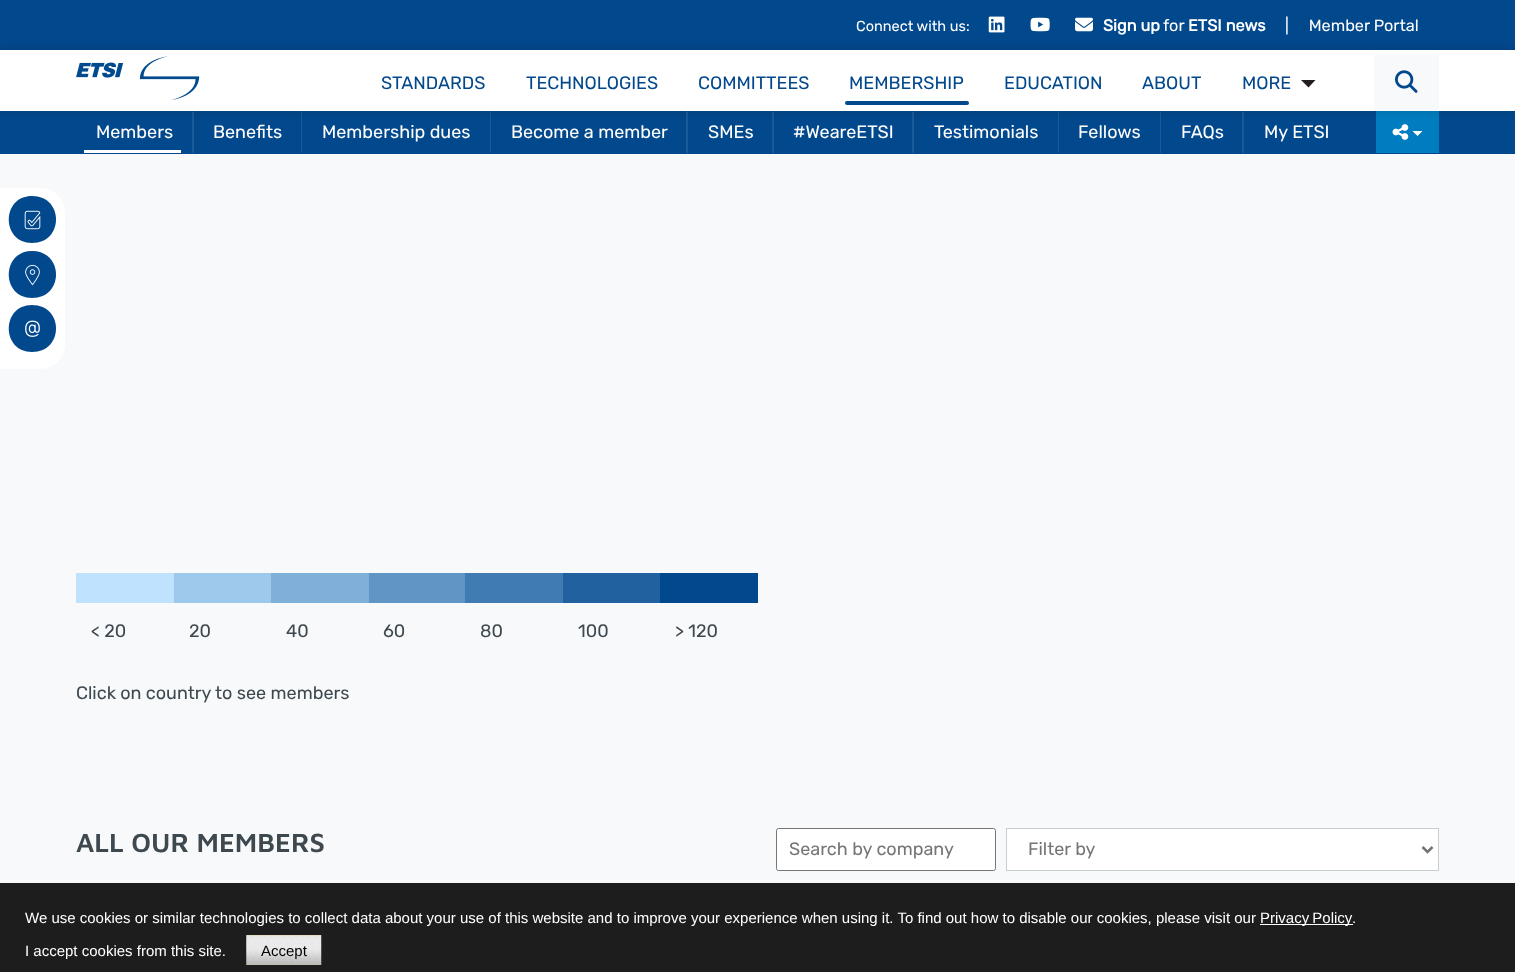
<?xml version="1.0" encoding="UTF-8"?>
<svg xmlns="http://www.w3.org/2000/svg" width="1515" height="972">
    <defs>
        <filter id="blur1" x="-50%" y="-200%" width="200%" height="500%"><feGaussianBlur stdDeviation="4"/></filter>
    </defs>
    <rect width="100%" height="100%" fill="#F8F9FA"/>
    <rect x="0" y="0" width="1515" height="50" fill="#02488D"/>
    <text x="856" y="31" font-family="Rubik" font-size="14.5" font-weight="300" fill="#FFFFFF">Connect with us:</text>
    <image x="988" y="16" width="17" height="17" href="img_01.png"/>
    <image x="1030" y="17" width="20" height="15" href="img_02.png"/>
    <image x="1075" y="17" width="18" height="15" href="img_03.png"/>
    <text x="1103" y="31" font-family="Rubik" font-size="16.25" font-weight="700" fill="#FFFFFF">Sign up</text>
    <text x="1163" y="31" font-family="Rubik" font-size="16.25" font-weight="300" fill="#FFFFFF">for</text>
    <text x="1188" y="31" font-family="Rubik" font-size="16.25" font-weight="700" fill="#FFFFFF">ETSI news</text>
    <text x="1285" y="31" font-family="Rubik" font-size="16.25" font-weight="300" fill="#FFFFFF" xml:space="preserve">|     Member Portal</text>
    <rect x="0" y="111" width="1515" height="43" fill="#02488D"/>
    <path d="M 194 111 V 154 L 192 152 V 112 Z" fill="#1B5A98"/>
    <path d="M 302 111 V 154 L 301 152 V 112 Z" fill="#1B5A98"/>
    <path d="M 491 111 V 154 L 490 152 V 112 Z" fill="#1B5A98"/>
    <path d="M 688 111 V 154 L 686 152 V 112 Z" fill="#1B5A98"/>
    <path d="M 774 111 V 154 L 772 152 V 112 Z" fill="#1B5A98"/>
    <path d="M 914 111 V 154 L 912 152 V 112 Z" fill="#1B5A98"/>
    <path d="M 1059 111 V 154 L 1058 152 V 112 Z" fill="#1B5A98"/>
    <path d="M 1161 111 V 154 L 1160 152 V 112 Z" fill="#1B5A98"/>
    <path d="M 1244 111 V 154 L 1242 152 V 112 Z" fill="#1B5A98"/>
    <rect x="1376" y="111" width="63" height="42" fill="#007DC0"/>
    <image x="1392" y="124" width="17" height="16" href="img_06.png"/>
    <rect x="-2" y="48" width="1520" height="66" fill="#000000" fill-opacity="0.1" filter="url(#blur1)"/>
    <rect x="0" y="50" width="1515" height="61" fill="#FFFFFF"/>
    <image x="76" y="56" width="124" height="44" href="img_04.png"/>
    <text x="381" y="89" font-family="Rubik" font-size="18" font-weight="300" fill="#02488D">STANDARDS</text>
    <text x="526" y="89" font-family="Rubik" font-size="18" font-weight="300" fill="#02488D">TECHNOLOGIES</text>
    <text x="698" y="89" font-family="Rubik" font-size="18" font-weight="300" fill="#02488D">COMMITTEES</text>
    <text x="849" y="89" font-family="Rubik" font-size="18" font-weight="300" fill="#02488D">MEMBERSHIP</text>
    <rect x="845" y="101" width="124" height="4" rx="2" fill="#02488D"/>
    <text x="1004" y="89" font-family="Rubik" font-size="18" font-weight="300" fill="#02488D">EDUCATION</text>
    <text x="1142" y="89" font-family="Rubik" font-size="18" font-weight="300" fill="#02488D">ABOUT</text>
    <path d="M 1315.5 80 L 1308.5 87.5 L 1301 80 Z" fill="#231F20"/>
    <text x="1242" y="89" font-family="Rubik" font-size="18" font-weight="300" fill="#02488D">MORE</text>
    <rect x="1374" y="55" width="65" height="56" fill="#F8F9FA"/>
    <image x="1395" y="70" width="23" height="23" href="img_05.png"/>
    <text x="96" y="138" font-family="Rubik" font-size="18" font-weight="300" fill="#FFFFFF">Members</text>
    <rect x="84" y="150" width="97" height="3" fill="#FFFFFF"/>
    <text x="213" y="138" font-family="Rubik" font-size="18" font-weight="300" fill="#FFFFFF">Benefits</text>
    <text x="322" y="138" font-family="Rubik" font-size="18" font-weight="300" fill="#FFFFFF">Membership dues</text>
    <text x="511" y="138" font-family="Rubik" font-size="18" font-weight="300" fill="#FFFFFF">Become a member</text>
    <text x="708" y="138" font-family="Rubik" font-size="18" font-weight="300" fill="#FFFFFF">SMEs</text>
    <text x="793" y="138" font-family="Rubik" font-size="18" font-weight="300" fill="#FFFFFF">#WeareETSI</text>
    <text x="934" y="138" font-family="Rubik" font-size="18" font-weight="300" fill="#FFFFFF">Testimonials</text>
    <text x="1078" y="138" font-family="Rubik" font-size="18" font-weight="300" fill="#FFFFFF">Fellows</text>
    <text x="1181" y="138" font-family="Rubik" font-size="18" font-weight="300" fill="#FFFFFF">FAQs</text>
    <text x="1264" y="138" font-family="Rubik" font-size="18" font-weight="300" fill="#FFFFFF">My ETSI</text>
    <path d="M 1412.5 131 H 1422.5 L 1417.5 136 Z" fill="#FFFFFF"/>
    <path d="M 0 188 H 40 C 54 188 65 199 65 213 V 344 C 65 358 54 369 40 369 H 0 Z" fill="#FFFFFF"/>
    <path d="M 32 243 C 64 243 64 196 32 196 C 1 196 1 243 32 243 Z" fill="#02488D"/>
    <image x="24" y="210" width="17" height="20" href="img_07.png"/>
    <path d="M 32 298 C 64 298 64 251 32 251 C 1 251 1 298 32 298 Z" fill="#02488D"/>
    <image x="25" y="264" width="15" height="22" href="img_08.png"/>
    <path d="M 32 352 C 64 352 64 305 32 305 C 1 305 1 352 32 352 Z" fill="#02488D"/>
    <image x="25" y="320" width="15" height="17" href="img_09.png"/>
    <rect x="76" y="573" width="98" height="30" fill="#BFE3FF"/>
    <rect x="174" y="573" width="97" height="30" fill="#9FC9EC"/>
    <rect x="271" y="573" width="98" height="30" fill="#80AFD9"/>
    <rect x="369" y="573" width="96" height="30" fill="#6095C6"/>
    <rect x="465" y="573" width="98" height="30" fill="#417BB3"/>
    <rect x="563" y="573" width="97" height="30" fill="#2161A0"/>
    <rect x="660" y="573" width="98" height="30" fill="#02488D"/>
    <text x="91" y="637" font-family="Rubik" font-size="18" font-weight="300" fill="#3E484F">&lt; 20</text>
    <text x="189" y="637" font-family="Rubik" font-size="18" font-weight="300" fill="#3E484F">20</text>
    <text x="286" y="637" font-family="Rubik" font-size="18" font-weight="300" fill="#3E484F">40</text>
    <text x="383" y="637" font-family="Rubik" font-size="18" font-weight="300" fill="#3E484F">60</text>
    <text x="480" y="637" font-family="Rubik" font-size="18" font-weight="300" fill="#3E484F">80</text>
    <text x="578" y="637" font-family="Rubik" font-size="18" font-weight="300" fill="#3E484F">100</text>
    <text x="675" y="637" font-family="Rubik" font-size="18" font-weight="300" fill="#3E484F">&gt; 120</text>
    <text x="76" y="699" font-family="Rubik" font-size="18" font-weight="300" fill="#3E484F">Click on country to see members</text>
    <text x="76" y="852" font-family="Maven Pro" font-size="27" font-weight="600" fill="#3E484F">ALL OUR MEMBERS</text>
    <rect x="776.5" y="828.5" width="219" height="42" rx="2" fill="#FFFFFF" stroke="#767676"/>
    <text x="789" y="855" font-family="Rubik" font-size="18" font-weight="300" fill="#757575">Search by company</text>
    <rect x="1006.5" y="828.5" width="432" height="42" fill="#FFFFFF" stroke="#C8CDCF"/>
    <path d="M 1422.5 847 L 1427.5 852 L 1432.5 847" fill="none" stroke="#727476" stroke-width="2.5"/>
    <text x="1028" y="855" font-family="Rubik" font-size="18" font-weight="300" fill="#757575">Filter by</text>
    <rect x="0" y="883" width="1515" height="89" fill="#1D1D1D"/>
    <text x="25" y="923" font-family="Liberation Sans" font-size="15" fill="#FFFFFF">We use cookies or similar technologies to collect data about your use of this website and to improve your experience when using it. To find out how to disable our cookies, please visit our</text>
    <rect x="1260" y="924" width="93" height="1" fill="#FFFFFF"/>
    <text x="1260" y="923" word-spacing="-1" font-family="Liberation Sans" font-size="15" fill="#FFFFFF">Privacy Policy</text>
    <text x="1352" y="923" font-family="Liberation Sans" font-size="15" fill="#FFFFFF">.</text>
    <text x="25" y="956" font-family="Liberation Sans" font-size="15" fill="#FFFFFF">I accept cookies from this site.</text>
    <image x="246" y="935" width="76" height="30" href="img_10.png"/>
    <text x="261" y="956" font-family="Liberation Sans" font-size="15" fill="#000000">Accept</text>
</svg>
